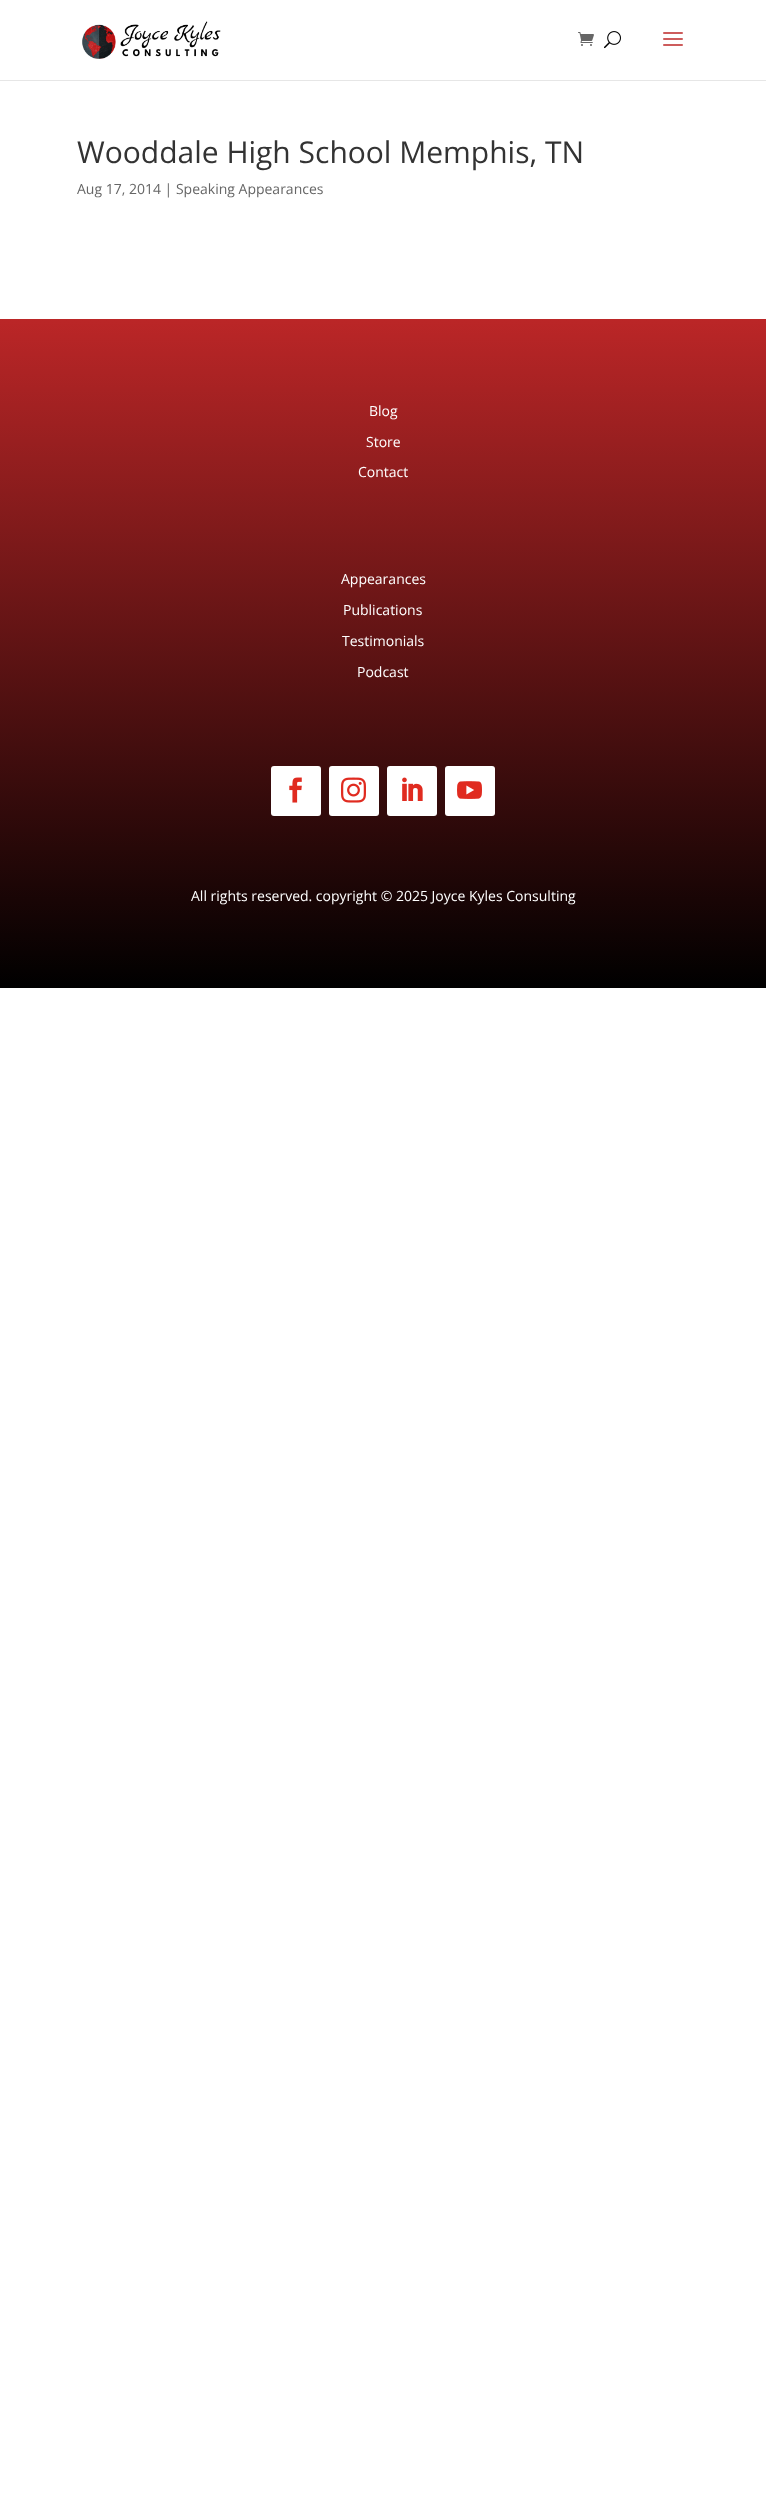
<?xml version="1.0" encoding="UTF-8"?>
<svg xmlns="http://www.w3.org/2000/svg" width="766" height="2496">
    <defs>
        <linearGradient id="g1" gradientUnits="userSpaceOnUse" x1="383" y1="319" x2="383" y2="988"><stop offset="0" stop-color="#BB2627"/><stop offset="1" stop-color="#000000"/></linearGradient>
    </defs>
    <rect width="100%" height="100%" fill="#FFFFFF"/>
    <rect x="0" y="80" width="766" height="1" fill="#E6E6E6"/>
    <image x="82" y="21" width="139" height="38" href="img_01.png"/>
    <image x="578" y="32" width="16" height="14" href="img_02.png"/>
    <image x="604" y="31" width="17" height="18" href="img_03.png"/>
    <image x="663" y="32" width="20" height="14" href="img_04.png"/>
    <text x="77" y="163" font-family="Open Sans" font-size="30" fill="#333333">Wooddale High School Memphis, TN</text>
    <text x="77" y="194" font-family="Open Sans" font-size="14" fill="#666666">Aug 17, 2014 | Speaking Appearances</text>
    <rect x="0" y="319" width="766" height="669" fill="url(#g1)"/>
    <text x="369" y="416" font-family="Open Sans" font-size="14" fill="#FFFFFF">Blog</text>
    <text x="366" y="447" font-family="Open Sans" font-size="14" fill="#FFFFFF">Store</text>
    <text x="358" y="477" font-family="Open Sans" font-size="14" fill="#FFFFFF">Contact</text>
    <text x="341" y="584" font-family="Open Sans" font-size="14" fill="#FFFFFF">Appearances</text>
    <text x="343" y="615" font-family="Open Sans" font-size="14" fill="#FFFFFF">Publications</text>
    <text x="342" y="646" font-family="Open Sans" font-size="14" fill="#FFFFFF">Testimonials</text>
    <text x="357" y="677" font-family="Open Sans" font-size="14" fill="#FFFFFF">Podcast</text>
    <rect x="271" y="766" width="50" height="50" rx="3" fill="#FFFFFF"/>
    <image x="289" y="777" width="13" height="26" href="img_05.png"/>
    <rect x="329" y="766" width="50" height="50" rx="3" fill="#FFFFFF"/>
    <image x="341" y="777" width="25" height="26" href="img_06.png"/>
    <rect x="387" y="766" width="50" height="50" rx="3" fill="#FFFFFF"/>
    <image x="402" y="777" width="21" height="24" href="img_07.png"/>
    <rect x="445" y="766" width="50" height="50" rx="3" fill="#FFFFFF"/>
    <image x="457" y="781" width="25" height="18" href="img_08.png"/>
    <text x="191" y="901" font-family="Open Sans" font-size="14" fill="#FFFFFF">All rights reserved. copyright © 2025 Joyce Kyles Consulting</text>
</svg>
